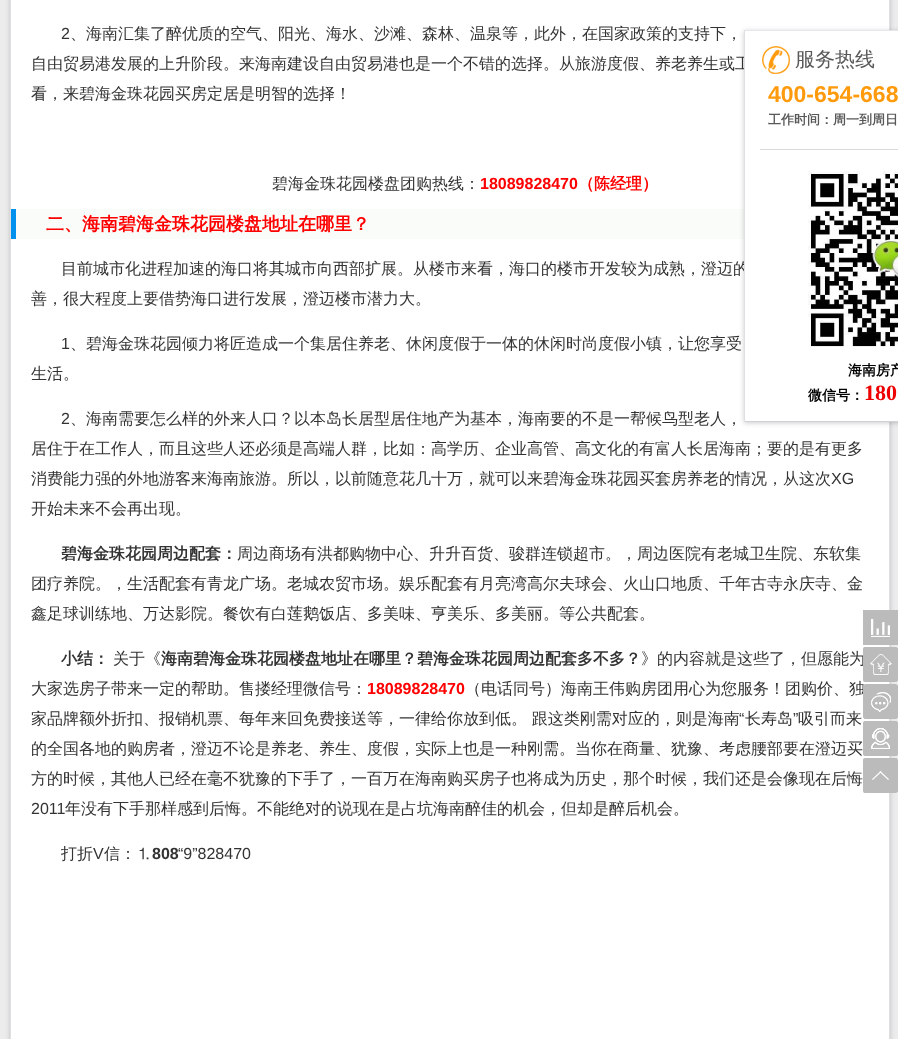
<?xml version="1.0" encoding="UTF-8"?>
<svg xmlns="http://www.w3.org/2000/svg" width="898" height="1039">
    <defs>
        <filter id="blur1" x="-50%" y="-200%" width="200%" height="500%"><feGaussianBlur stdDeviation="2.5"/></filter>
    </defs>
    <rect width="100%" height="100%" fill="#ECECEC"/>
    <rect x="10" y="-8" width="880" height="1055" fill="#000000" fill-opacity="0.2" filter="url(#blur1)"/>
    <rect x="11" y="0" width="878" height="1039" fill="#FFFFFF"/>
    <rect x="889" y="0" width="1" height="1039" fill="#DFE0E4"/>
    <rect x="10" y="0" width="1" height="1039" fill="#DFE0E4"/>
    <text x="61" y="39" font-family="Liberation Sans" font-size="16" fill="#333333">2</text>
    <text x="70" y="39" font-family="WenQuanYi Zen Hei" font-size="16" font-weight="500" fill="#333333">、海南汇集了醉优质的空气、阳光、海水、沙滩、森林、温泉等，此外，在国家政策的支持下，</text>
    <text font-family="WenQuanYi Zen Hei" font-size="16" font-weight="500" fill="#333333">
        <tspan x="31" y="69">自由贸易港发展的上升阶段。来海南建设自由贸易港也是一个不错的选择。从旅游度假、养老养生或工</tspan>
        <tspan x="31" y="99">看，来碧海金珠花园买房定居是明智的选择！</tspan>
    </text>
    <text x="272" y="189" font-family="WenQuanYi Zen Hei" font-size="16" font-weight="500" fill="#333333">碧海金珠花园楼盘团购热线：</text>
    <text x="480" y="189" font-family="Liberation Sans" font-size="16" font-weight="700" fill="#FF0000">18089828470</text>
    <text x="578" y="189" font-family="WenQuanYi Zen Hei" font-size="16" font-weight="700" fill="#FF0000">（陈经理）</text>
    <rect x="16" y="209" width="728" height="30" fill="#FAFCF9"/>
    <rect x="11" y="209" width="5" height="30" fill="#0090ED"/>
    <text x="46" y="230" font-family="WenQuanYi Zen Hei" font-size="18" font-weight="700" fill="#FF0000">二、海南碧海金珠花园楼盘地址在哪里？</text>
    <text x="61" y="274" font-family="WenQuanYi Zen Hei" font-size="16" font-weight="500" fill="#333333">目前城市化进程加速的海口将其城市向西部扩展。从楼市来看，海口的楼市开发较为成熟，澄迈的</text>
    <text x="31" y="304" font-family="WenQuanYi Zen Hei" font-size="16" font-weight="500" fill="#333333">善，很大程度上要借势海口进行发展，澄迈楼市潜力大。</text>
    <text x="61" y="349" font-family="Liberation Sans" font-size="16" fill="#333333">1</text>
    <text x="70" y="349" font-family="WenQuanYi Zen Hei" font-size="16" font-weight="500" fill="#333333">、碧海金珠花园倾力将匠造成一个集居住养老、休闲度假于一体的休闲时尚度假小镇，让您享受</text>
    <text x="31" y="379" font-family="WenQuanYi Zen Hei" font-size="16" font-weight="500" fill="#333333">生活。</text>
    <text x="61" y="424" font-family="Liberation Sans" font-size="16" fill="#333333">2</text>
    <text x="70" y="424" font-family="WenQuanYi Zen Hei" font-size="16" font-weight="500" fill="#333333">、海南需要怎么样的外来人口？以本岛长居型居住地产为基本，海南要的不是一帮候鸟型老人，</text>
    <text font-family="WenQuanYi Zen Hei" font-size="16" font-weight="500" fill="#333333">
        <tspan x="31" y="454">居住于在工作人，而且这些人还必须是高端人群，比如：高学历、企业高管、高文化的有富人长居海南；要的是有更多</tspan>
        <tspan x="31" y="484">消费能力强的外地游客来海南旅游。所以，以前随意花几十万，就可以来碧海金珠花园买套房养老的情况，从这次</tspan>
    </text>
    <text x="831" y="484" font-family="Liberation Sans" font-size="16" fill="#333333">XG</text>
    <text x="31" y="514" font-family="WenQuanYi Zen Hei" font-size="16" font-weight="500" fill="#333333">开始未来不会再出现。</text>
    <text x="61" y="559" font-family="WenQuanYi Zen Hei" font-size="16" font-weight="700" fill="#333333">碧海金珠花园周边配套：</text>
    <text x="237" y="559" font-family="WenQuanYi Zen Hei" font-size="16" font-weight="500" fill="#333333">周边商场有洪都购物中心、升升百货、骏群连锁超市。，周边医院有老城卫生院、东软集</text>
    <text font-family="WenQuanYi Zen Hei" font-size="16" font-weight="500" fill="#333333">
        <tspan x="31" y="589">团疗养院。，生活配套有青龙广场。老城农贸市场。娱乐配套有月亮湾高尔夫球会、火山口地质、千年古寺永庆寺、金</tspan>
        <tspan x="31" y="619">鑫足球训练地、万达影院。餐饮有白莲鹅饭店、多美味、亨美乐、多美丽。等公共配套。</tspan>
    </text>
    <text x="61" y="664" font-family="WenQuanYi Zen Hei" font-size="16" font-weight="700" fill="#333333">小结：</text>
    <text x="113" y="664" font-family="WenQuanYi Zen Hei" font-size="16" font-weight="500" fill="#333333">关于《</text>
    <text x="161" y="664" font-family="WenQuanYi Zen Hei" font-size="16" font-weight="700" fill="#333333">海南碧海金珠花园楼盘地址在哪里？碧海金珠花园周边配套多不多？</text>
    <text x="641" y="664" font-family="WenQuanYi Zen Hei" font-size="16" font-weight="500" fill="#333333">》的内容就是这些了，但愿能为</text>
    <text x="31" y="694" font-family="WenQuanYi Zen Hei" font-size="16" font-weight="500" fill="#333333">大家选房子带来一定的帮助。售搂经理微信号：</text>
    <text x="367" y="694" font-family="Liberation Sans" font-size="16" font-weight="700" fill="#FF0000">18089828470</text>
    <text x="465" y="694" font-family="WenQuanYi Zen Hei" font-size="16" font-weight="500" fill="#333333">（电话同号）海南王伟购房团用心为您服务！团购价、独</text>
    <text x="31" y="724" font-family="WenQuanYi Zen Hei" font-size="16" font-weight="500" fill="#333333">家品牌额外折扣、报销机票、每年来回免费接送等，一律给你放到低。 跟这类刚需对应的，则是海南</text>
    <text x="739" y="724" font-family="Liberation Sans" font-size="16" fill="#333333">“</text>
    <text x="745" y="724" font-family="WenQuanYi Zen Hei" font-size="16" font-weight="500" fill="#333333">长寿岛</text>
    <text x="793" y="724" font-family="Liberation Sans" font-size="16" fill="#333333">”</text>
    <text x="798" y="724" font-family="WenQuanYi Zen Hei" font-size="16" font-weight="500" fill="#333333">吸引而来</text>
    <text font-family="WenQuanYi Zen Hei" font-size="16" font-weight="500" fill="#333333">
        <tspan x="31" y="754">的全国各地的购房者，澄迈不论是养老、养生、度假，实际上也是一种刚需。当你在商量、犹豫、考虑腰部要在澄迈买</tspan>
        <tspan x="31" y="784">方的时候，其他人已经在毫不犹豫的下手了，一百万在海南购买房子也将成为历史，那个时候，我们还是会像现在后悔</tspan>
    </text>
    <text x="31" y="814" font-family="Liberation Sans" font-size="16" fill="#333333">2011</text>
    <text x="65" y="814" font-family="WenQuanYi Zen Hei" font-size="16" font-weight="500" fill="#333333">年没有下手那样感到后悔。不能绝对的说现在是占坑海南醉佳的机会，但却是醉后机会。</text>
    <text x="61" y="859" font-family="WenQuanYi Zen Hei" font-size="16" font-weight="500" fill="#333333">打折</text>
    <text x="93" y="859" font-family="Liberation Sans" font-size="16" fill="#333333">V</text>
    <text x="104" y="859" font-family="WenQuanYi Zen Hei" font-size="16" font-weight="500" fill="#333333">信：⒈</text>
    <text x="152" y="859" font-family="Liberation Sans" font-size="16" font-weight="700" fill="#333333">808</text>
    <text x="178" y="859" font-family="Liberation Sans" font-size="16" fill="#333333">“9”828470</text>
    <rect x="744" y="31" width="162" height="392" fill="#000000" fill-opacity="0.2" filter="url(#blur1)"/>
    <rect x="745" y="31" width="153" height="390" fill="#FFFFFF"/>
    <rect x="744" y="30" width="154" height="1" fill="#E5E6E9"/>
    <rect x="744" y="421" width="154" height="1" fill="#D0D1D5"/>
    <rect x="744" y="30" width="1" height="392" fill="#DFE0E4"/>
    <image x="762" y="46" width="28" height="28" href="img_01.png"/>
    <text x="795" y="66" font-family="WenQuanYi Zen Hei" font-size="20" font-weight="500" fill="#595959">服务热线</text>
    <text x="768" y="102" font-family="Liberation Sans" font-size="23" font-weight="700" fill="#FF9A0D">400-654-668</text>
    <text x="768" y="124" font-family="WenQuanYi Zen Hei" font-size="13" font-weight="700" fill="#595959">工作时间：周一到周日</text>
    <rect x="760" y="149" width="138" height="1" fill="#D9D9D9"/>
    <image x="808" y="171" width="90" height="176" href="img_02.png"/>
    <text x="848" y="375" font-family="WenQuanYi Zen Hei" font-size="14" font-weight="700" fill="#000000">海南房产</text>
    <text x="808" y="400" font-family="WenQuanYi Zen Hei" font-size="14" font-weight="700" fill="#000000">微信号：</text>
    <text x="864" y="400" font-family="Liberation Serif" font-size="22" font-weight="700" fill="#EE0000">180</text>
    <rect x="863" y="610" width="35" height="35" fill="#BBBBBB"/>
    <image x="871" y="619" width="19" height="18" href="img_03.png"/>
    <image x="863" y="647" width="35" height="35" href="img_04.png"/>
    <image x="863" y="684" width="35" height="35" href="img_05.png"/>
    <image x="863" y="721" width="35" height="35" href="img_06.png"/>
    <image x="863" y="758" width="35" height="35" href="img_07.png"/>
</svg>
